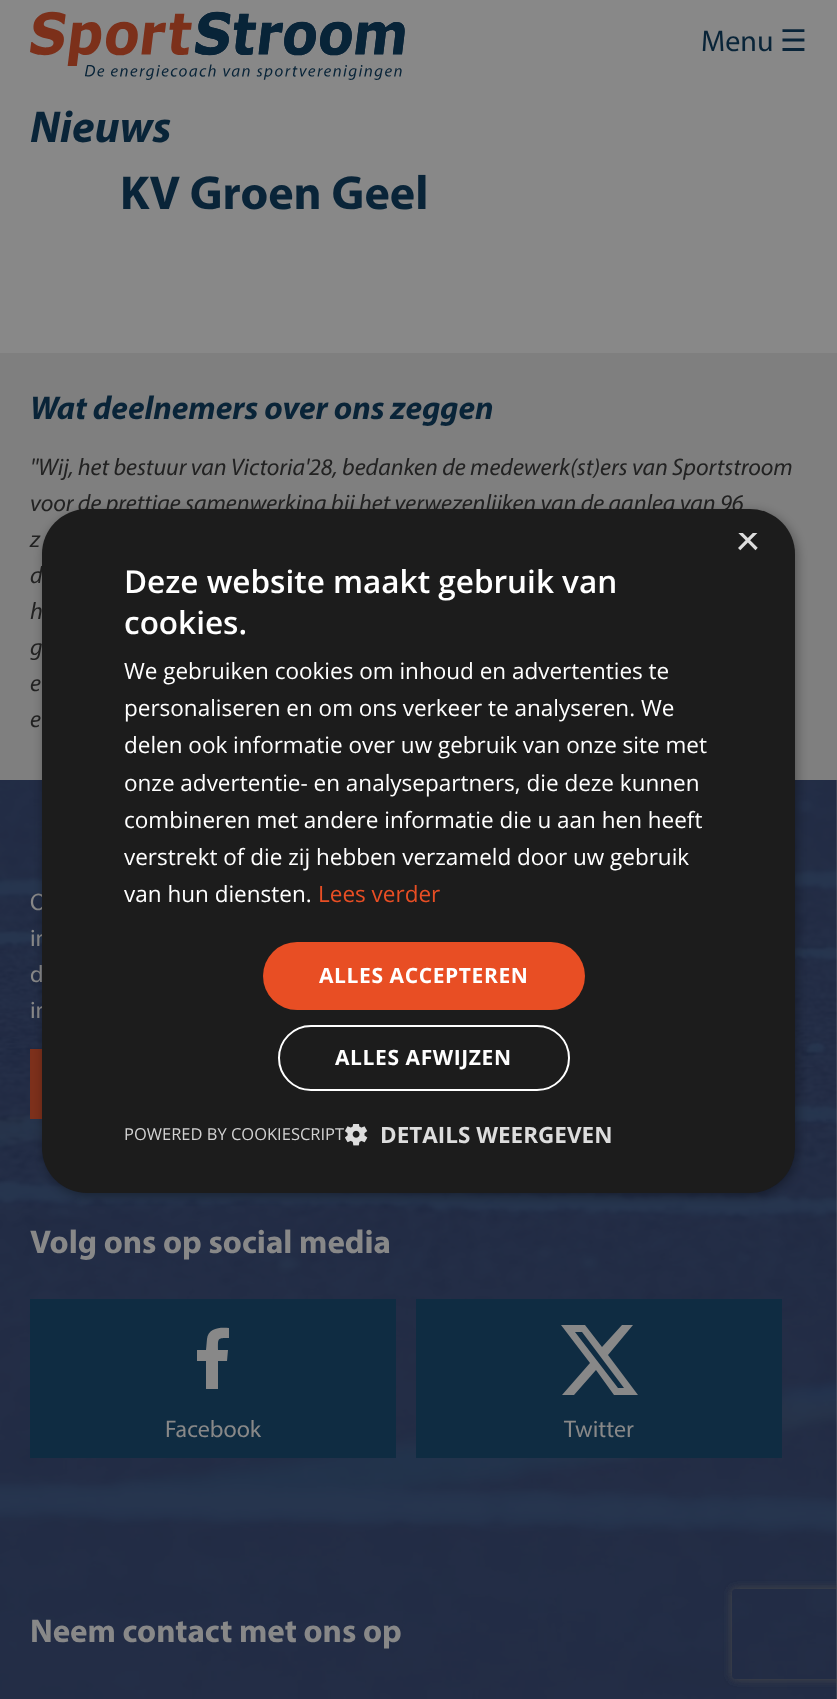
<?xml version="1.0" encoding="UTF-8"?>
<svg xmlns="http://www.w3.org/2000/svg" width="837" height="1699">
    <defs>
        <filter id="blur1" x="-50%" y="-200%" width="200%" height="500%"><feGaussianBlur stdDeviation="6"/></filter>
        <clipPath id="clip1"><rect x="735" y="533" width="23" height="22"/></clipPath>
        <clipPath id="clip2"><path d="M 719 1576 H 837 V 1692 H 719 Z M 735 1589 H 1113 C 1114.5 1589 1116 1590.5 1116 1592 V 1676 C 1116 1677.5 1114.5 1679 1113 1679 H 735 C 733.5 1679 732 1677.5 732 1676 V 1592 C 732 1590.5 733.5 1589 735 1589 Z" clip-rule="evenodd"/></clipPath>
        <filter id="blur2" x="-50%" y="-200%" width="200%" height="500%"><feGaussianBlur stdDeviation="4"/></filter>
    </defs>
    <rect width="100%" height="100%" fill="#888888"/>
    <image x="30" y="11" width="375" height="69" href="img_01.png"/>
    <text x="701" y="51" font-family="Myriad" font-size="30" fill="#092438">Menu</text>
    <text x="780" y="51" font-family="DejaVu Sans" font-size="30" fill="#092438">☰</text>
    <text x="30" y="142" font-family="Myriad" font-size="45" font-weight="700" font-style="italic" fill="#092438">Nieuws</text>
    <text x="120" y="209" font-family="Myriad" font-size="48" font-weight="700" fill="#092438">KV Groen Geel</text>
    <rect x="0" y="353" width="837" height="427" fill="#7F7F7F"/>
    <text x="30" y="419" font-family="Myriad" font-size="33" font-weight="700" font-style="italic" fill="#092438">Wat deelnemers over ons zeggen</text>
    <text font-family="Myriad" font-size="24" font-style="italic" fill="#222222">
        <tspan x="30" y="475">''Wij, het bestuur van Victoria'28, bedanken de medewerk(st)ers van Sportstroom</tspan>
        <tspan x="30" y="511">voor de prettige samenwerking bij het verwezenlijken van de aanleg van 96</tspan>
        <tspan x="30" y="547">z</tspan>
        <tspan x="30" y="583">d</tspan>
        <tspan x="30" y="619">h</tspan>
        <tspan x="30" y="655">g</tspan>
        <tspan x="30" y="691">e</tspan>
        <tspan x="30" y="727">e</tspan>
    </text>
    <image x="0" y="780" width="837" height="919" href="img_02.png"/>
    <text font-family="Myriad" font-size="24" fill="#888888">
        <tspan x="30" y="910">O</tspan>
        <tspan x="30" y="946">in</tspan>
        <tspan x="30" y="982">d</tspan>
        <tspan x="30" y="1018">in</tspan>
    </text>
    <rect x="30" y="1049" width="12" height="70" fill="#7D301B"/>
    <text x="30" y="1253" font-family="Myriad" font-size="33" font-weight="700" fill="#888888">Volg ons op social media</text>
    <rect x="30" y="1299" width="366" height="159" fill="#0F2C42"/>
    <path d="M 229 1328 V 1338 C 217 1338 218 1338 218 1350 H 228 L 227 1361 H 218 V 1389 H 206 V 1361 H 197 V 1350 H 206 L 207 1339 C 208 1328 220 1327 229 1328 Z" fill="#888888"/>
    <text x="165" y="1437" font-family="Myriad" font-size="24" fill="#888888">Facebook</text>
    <rect x="416" y="1299" width="366" height="159" fill="#0F2C42"/>
    <path d="M 622 1325 H 633 L 608 1355 L 638 1395 H 614 L 596 1370 L 574 1395 H 562 L 590 1363 L 561 1325 H 585 L 602 1347 Z M 618 1388 H 624 L 582 1332 H 575 Z" fill="#888888"/>
    <text x="564" y="1437" font-family="Myriad" font-size="24" fill="#888888">Twitter</text>
    <text x="30" y="1642" font-family="Myriad" font-size="33" font-weight="700" fill="#888888">Neem contact met ons op</text>
    <rect x="44" y="512" width="753" height="684" rx="45" fill="#000000" fill-opacity="0.35" filter="url(#blur1)"/>
    <rect x="42" y="509" width="753" height="684" rx="45" fill="#1C1C1C"/>
    <g clip-path="url(#clip1)">
        <text x="735" y="555" font-family="Liberation Sans" font-size="44" fill="#DDDDDD">×</text>
    </g>
    <text font-family="Open Sans" font-size="31.5" font-weight="600" fill="#FFFFFF">
        <tspan x="124" y="593">Deze website maakt gebruik van</tspan>
        <tspan x="124" y="634">cookies.</tspan>
    </text>
    <text font-family="Open Sans" font-size="22.5" fill="#FFFFFF">
        <tspan x="124" y="679">We gebruiken cookies om inhoud en advertenties te</tspan>
        <tspan x="124" y="716">personaliseren en om ons verkeer te analyseren. We</tspan>
        <tspan x="124" y="753">delen ook informatie over uw gebruik van onze site met</tspan>
        <tspan x="124" y="791">onze advertentie- en analysepartners, die deze kunnen</tspan>
        <tspan x="124" y="828">combineren met andere informatie die u aan hen heeft</tspan>
        <tspan x="124" y="865">verstrekt of die zij hebben verzameld door uw gebruik</tspan>
        <tspan x="124" y="902">van hun diensten.</tspan>
    </text>
    <text x="318" y="902" font-family="Open Sans" font-size="22.5" fill="#E84E24">Lees verder</text>
    <rect x="263" y="942" width="322" height="68" rx="34" fill="#E84E24"/>
    <text x="319" y="983" font-family="Open Sans" font-size="21" font-weight="700" letter-spacing="0.6" fill="#FFFFFF">ALLES ACCEPTEREN</text>
    <rect x="279" y="1026" width="290" height="64" rx="32" fill="none" stroke="#FFFFFF" stroke-width="2"/>
    <text x="335" y="1065" font-family="Open Sans" font-size="21" font-weight="700" letter-spacing="0.6" fill="#FFFFFF">ALLES AFWIJZEN</text>
    <text x="124" y="1140" font-family="Open Sans" font-size="16.5" fill="#D2D2D2">POWERED BY COOKIESCRIPT</text>
    <image x="345" y="1124" width="23" height="22" href="img_03.png"/>
    <text x="380" y="1143" font-family="Open Sans" font-size="22.5" font-weight="700" fill="#DDDDDD">DETAILS WEERGEVEN</text>
    <g clip-path="url(#clip2)">
        <rect x="732" y="1589" width="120" height="90" rx="3" fill="#494949" filter="url(#blur2)"/>
    </g>
</svg>
